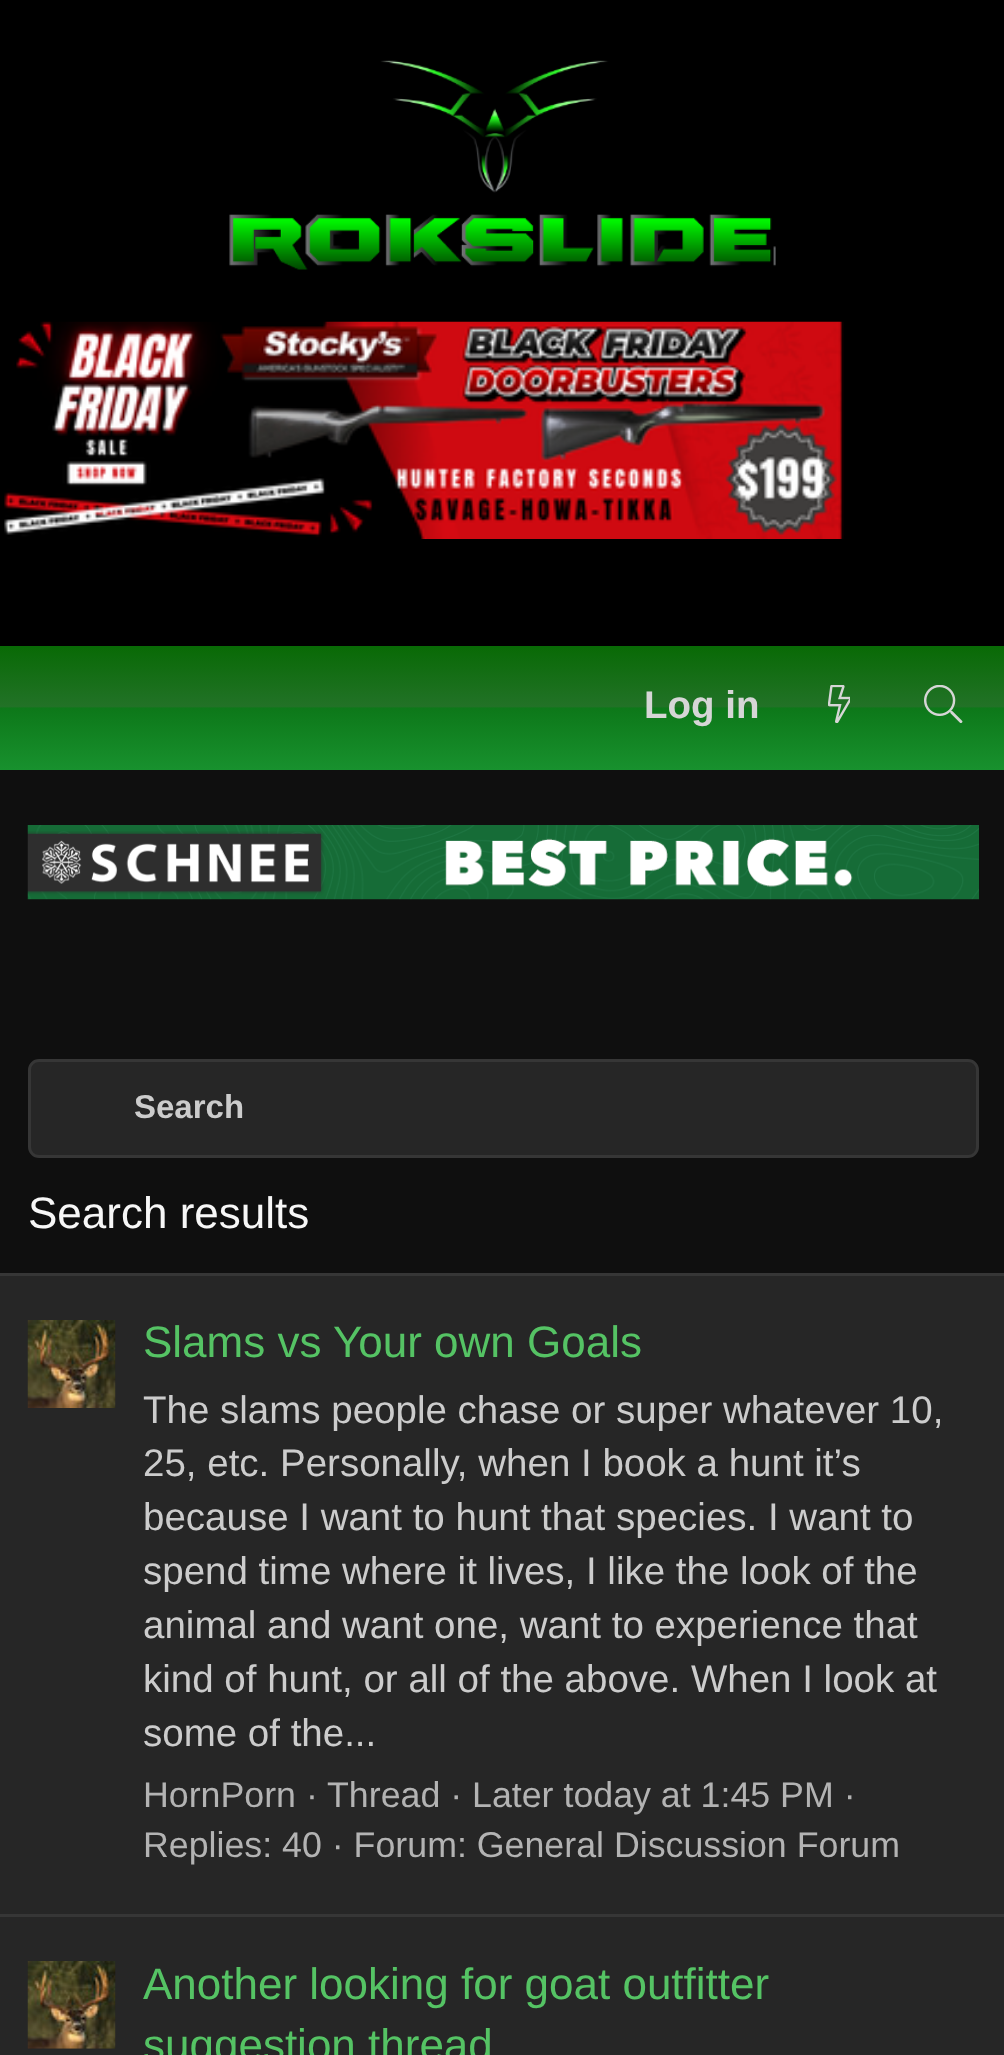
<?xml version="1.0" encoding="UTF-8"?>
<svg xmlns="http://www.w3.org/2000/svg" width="1004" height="2055">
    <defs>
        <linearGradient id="g1" gradientUnits="userSpaceOnUse" x1="503" y1="646" x2="503" y2="770"><stop offset="0.01" stop-color="#096A06"/><stop offset="0.49" stop-color="#227227"/><stop offset="0.5" stop-color="#0D7819"/><stop offset="1" stop-color="#18912E"/></linearGradient>
    </defs>
    <rect width="100%" height="100%" fill="#0F0F0F"/>
    <rect x="0" y="0" width="1004" height="646" fill="#000000"/>
    <image x="229" y="60" width="547" height="210" href="img_01.png"/>
    <image x="4" y="321" width="840" height="218" href="img_02.png"/>
    <rect x="0" y="646" width="1004" height="124" fill="url(#g1)"/>
    <text x="644" y="718" font-family="Liberation Sans" font-size="38.5" font-weight="700" fill="#D6D6D6">Log in</text>
    <image x="828" y="685" width="22" height="38" href="img_03.png"/>
    <image x="924" y="685" width="39" height="38" href="img_04.png"/>
    <image x="27" y="825" width="952" height="75" href="img_05.png"/>
    <rect x="29.5" y="1060.5" width="948" height="96" rx="9.5" fill="#262626" stroke="#363636" stroke-width="3"/>
    <text x="134" y="1118" font-family="Liberation Sans" font-size="33" font-weight="700" fill="#CCCCCC">Search</text>
    <text x="28" y="1228" font-family="Liberation Sans" font-size="44" fill="#F7F7F7">Search results</text>
    <rect x="0" y="1276" width="1004" height="779" fill="#262626"/>
    <rect x="0" y="1273" width="1004" height="3" fill="#363636"/>
    <image x="27" y="1320" width="89" height="88" href="img_06.png"/>
    <text x="143" y="1357" font-family="Liberation Sans" font-size="44" fill="#55C364">Slams vs Your own Goals</text>
    <text font-family="Liberation Sans" font-size="38.5" fill="#CCCCCC">
        <tspan x="143" y="1423">The slams people chase or super whatever 10,</tspan>
        <tspan x="143" y="1476">25, etc. Personally, when I book a hunt it’s</tspan>
        <tspan x="143" y="1530">because I want to hunt that species. I want to</tspan>
        <tspan x="143" y="1584">spend time where it lives, I like the look of the</tspan>
        <tspan x="143" y="1638">animal and want one, want to experience that</tspan>
        <tspan x="143" y="1692">kind of hunt, or all of the above. When I look at</tspan>
        <tspan x="143" y="1746">some of the...</tspan>
    </text>
    <text x="143" y="1807" font-family="Liberation Sans" font-size="35.75" fill="#B3B3B3">HornPorn ·</text>
    <text x="327" y="1807" font-family="Liberation Sans" font-size="35.75" fill="#B3B3B3">Thread · Later today at 1:45 PM ·</text>
    <text x="143" y="1857" font-family="Liberation Sans" font-size="35.75" fill="#B3B3B3">Replies: 40 · Forum: General Discussion Forum</text>
    <rect x="0" y="1914" width="1004" height="3" fill="#363636"/>
    <image x="27" y="1961" width="89" height="88" href="img_07.png"/>
    <text font-family="Liberation Sans" font-size="44" fill="#55C364">
        <tspan x="143" y="1999">Another looking for goat outfitter</tspan>
        <tspan x="143" y="2060">suggestion thread</tspan>
    </text>
</svg>
